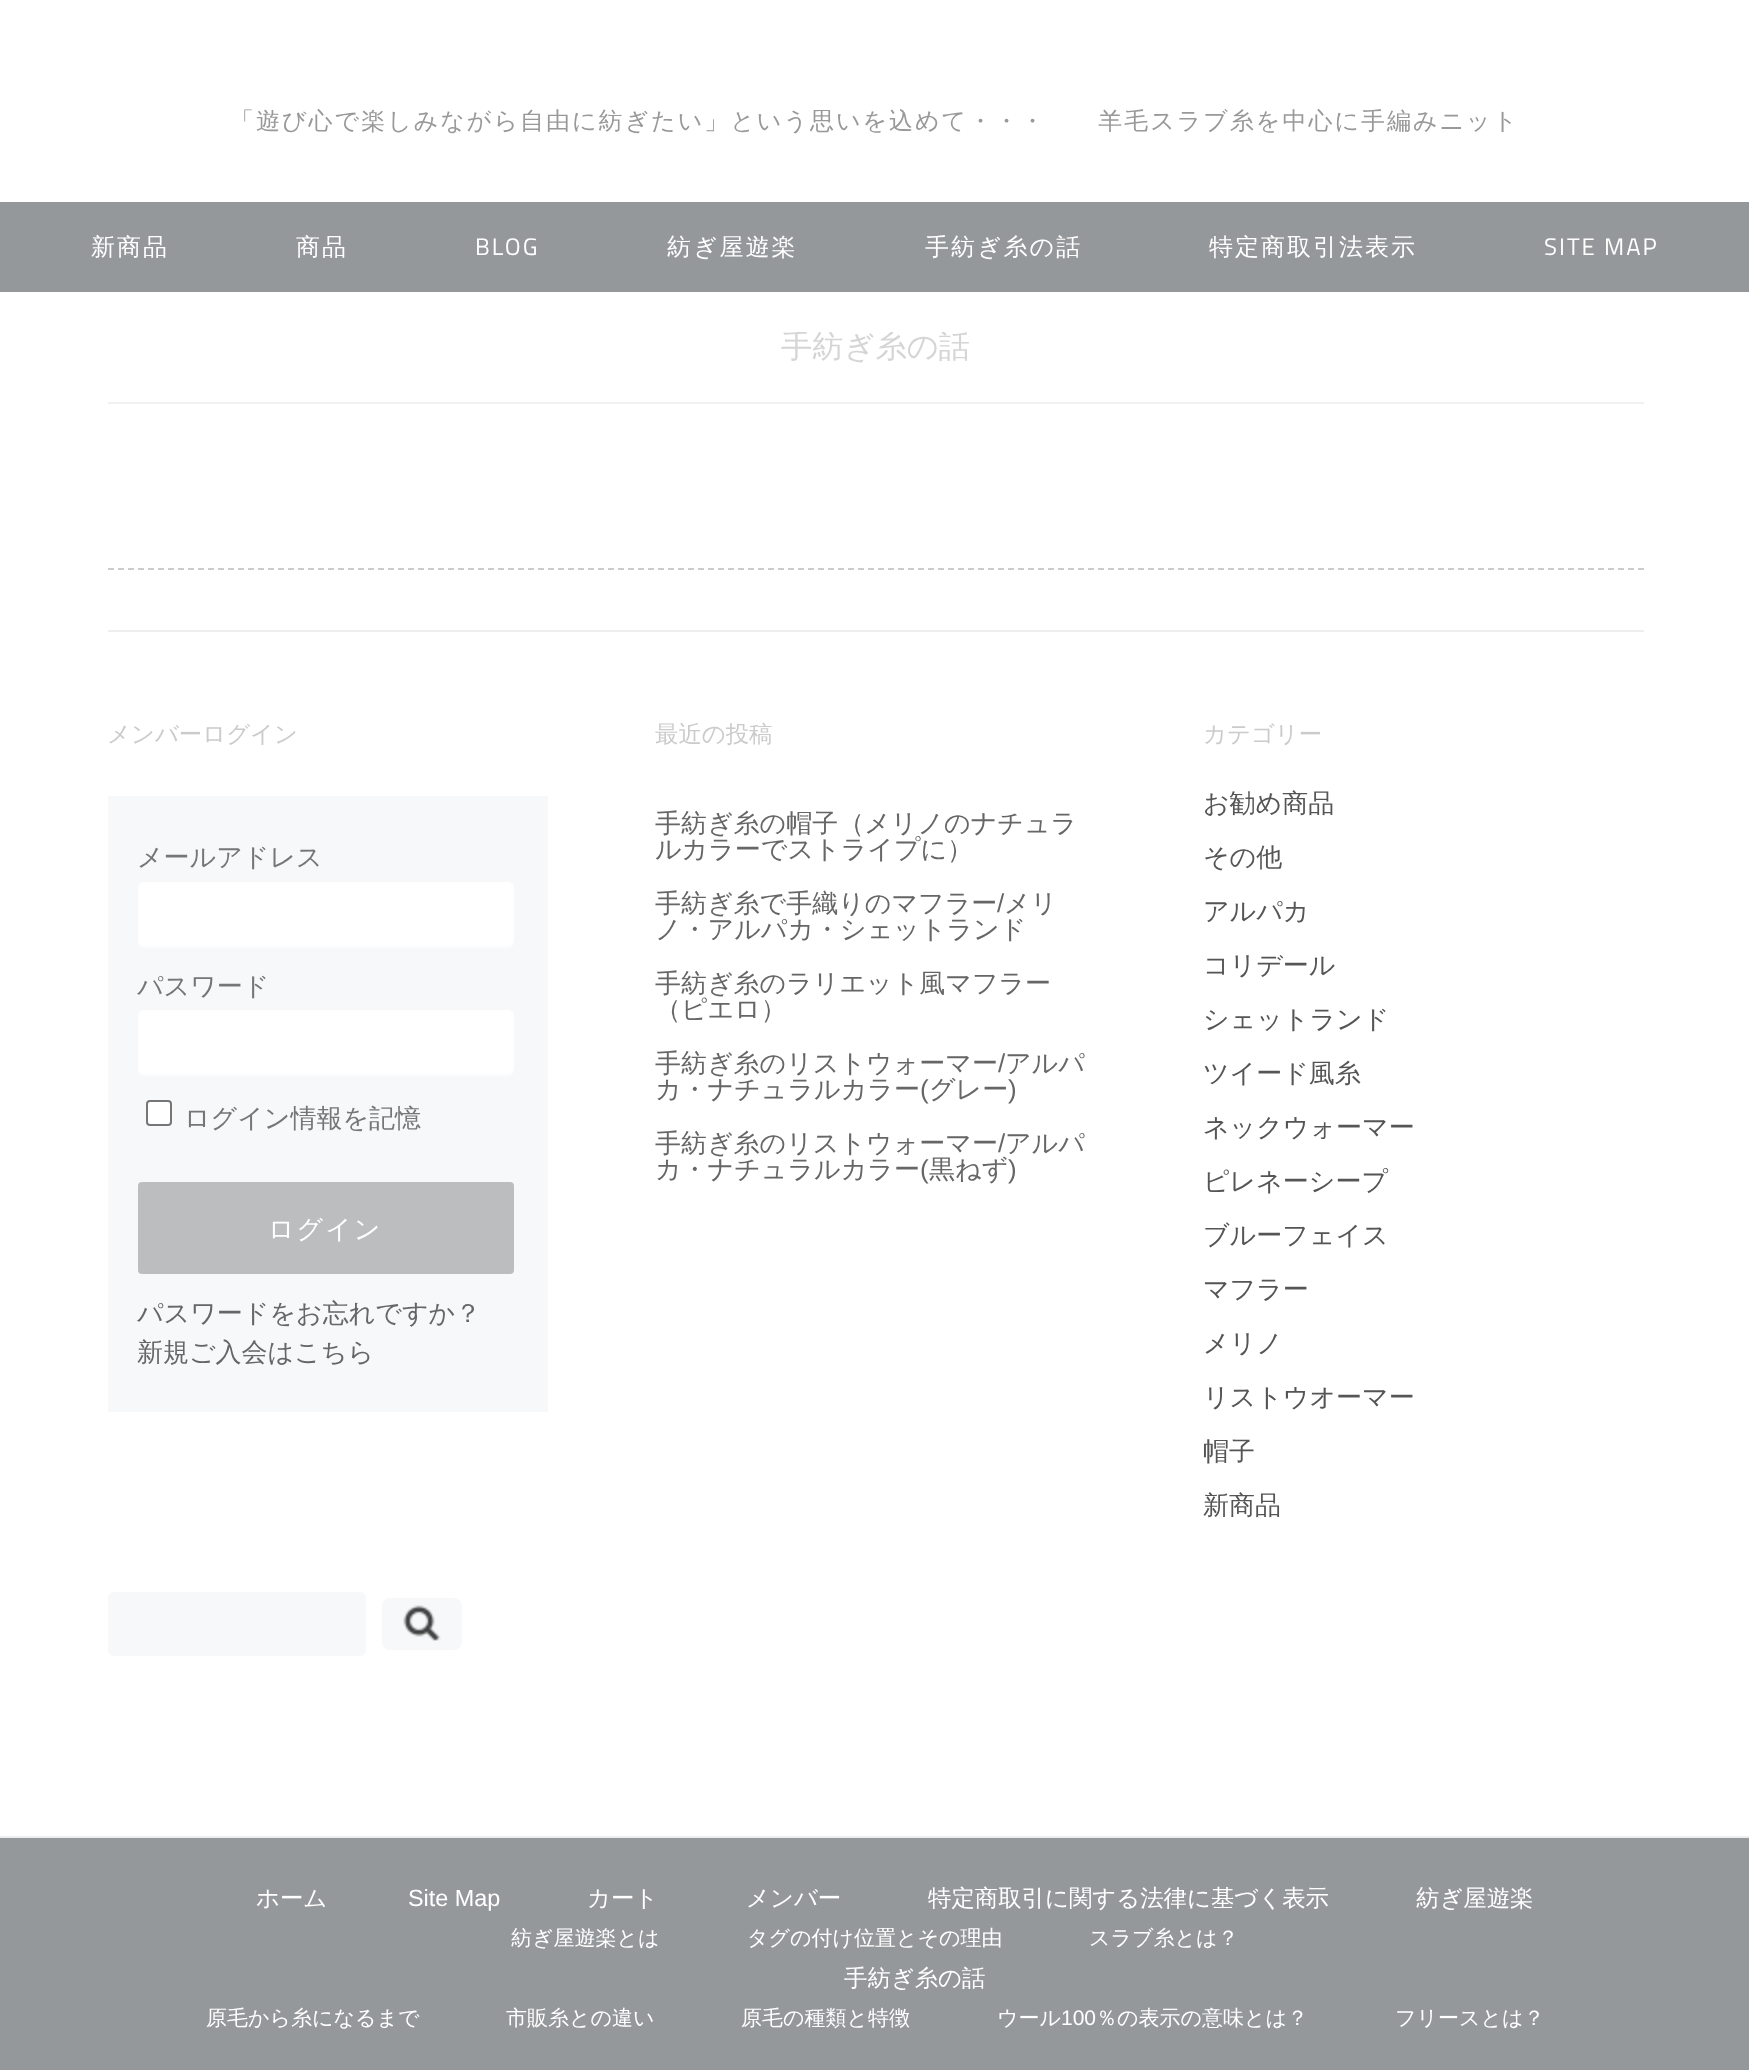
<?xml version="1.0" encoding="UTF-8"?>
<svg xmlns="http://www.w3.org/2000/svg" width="1749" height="2070">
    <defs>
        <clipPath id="clip1"><rect x="108" y="332" width="1536" height="298"/></clipPath>
    </defs>
    <rect width="100%" height="100%" fill="#FFFFFF"/>
    <text x="230" y="129" font-family="WenQuanYi Zen Hei" font-size="24" font-weight="500" letter-spacing="2" fill="#999999">「遊び心で楽しみながら自由に紡ぎたい」という思いを込めて・・・　　羊毛スラブ糸を中心に手編みニット</text>
    <rect x="0" y="202" width="1749" height="90" fill="#95989B"/>
    <text x="91" y="255" font-family="WenQuanYi Zen Hei" font-size="24" font-weight="500" letter-spacing="2" fill="#FFFFFF">新商品</text>
    <text x="296" y="255" font-family="WenQuanYi Zen Hei" font-size="24" font-weight="500" letter-spacing="2" fill="#FFFFFF">商品</text>
    <text x="475" y="255" font-family="Titillium Web" font-size="24" letter-spacing="2" fill="#FFFFFF">BLOG</text>
    <text x="667" y="255" font-family="WenQuanYi Zen Hei" font-size="24" font-weight="500" letter-spacing="2" fill="#FFFFFF">紡ぎ屋遊楽</text>
    <text x="925" y="255" font-family="WenQuanYi Zen Hei" font-size="24" font-weight="500" letter-spacing="2" fill="#FFFFFF">手紡ぎ糸の話</text>
    <text x="1209" y="255" font-family="WenQuanYi Zen Hei" font-size="24" font-weight="500" letter-spacing="2" fill="#FFFFFF">特定商取引法表示</text>
    <text x="1544" y="255" font-family="Titillium Web" font-size="24" letter-spacing="2" fill="#FFFFFF">SITE MAP</text>
    <rect x="108" y="402" width="1536" height="2" fill="#F1F1F1"/>
    <g clip-path="url(#clip1)">
        <text x="781" y="357" font-family="WenQuanYi Zen Hei" font-size="31.25" font-weight="500" fill="#D5D5D5">手紡ぎ糸の話</text>
    </g>
    <path d="M 108 569 H 1644" fill="none" stroke="#CCCCCC" stroke-width="2" stroke-dasharray="6 4"/>
    <rect x="108" y="630" width="1536" height="2" fill="#EEEEEF"/>
    <text x="107" y="742" font-family="WenQuanYi Zen Hei" font-size="23.4" font-weight="500" fill="#CBCBCD">メンバーログイン</text>
    <rect x="108" y="796" width="440" height="616" fill="#F7F8FA"/>
    <text x="137" y="866" font-family="WenQuanYi Zen Hei" font-size="26" font-weight="500" fill="#757677">メールアドレス</text>
    <path d="M 138 940 C 138 944 139 948 144 948 H 508 C 513 948 514 944 514 940 C 514 943 511 946 508 946 H 144 C 141 946 138 943 138 940 Z" fill="#FBFCFD"/>
    <rect x="138" y="882" width="376" height="64" rx="6" fill="#FFFFFF"/>
    <text x="137" y="995" font-family="WenQuanYi Zen Hei" font-size="26" font-weight="500" fill="#757677">パスワード</text>
    <path d="M 138 1068 C 138 1072 139 1076 144 1076 H 508 C 513 1076 514 1072 514 1068 C 514 1071 511 1074 508 1074 H 144 C 141 1074 138 1071 138 1068 Z" fill="#FBFCFD"/>
    <rect x="138" y="1010" width="376" height="64" rx="6" fill="#FFFFFF"/>
    <rect x="147" y="1101" width="24" height="24" rx="3" fill="#FFFFFF" stroke="#767676" stroke-width="2"/>
    <text x="184" y="1127" font-family="WenQuanYi Zen Hei" font-size="26" font-weight="500" fill="#757677">ログイン情報を記憶</text>
    <rect x="138" y="1182" width="376" height="92" rx="4" fill="#BBBDBF"/>
    <text x="268" y="1238" font-family="WenQuanYi Zen Hei" font-size="26" font-weight="500" letter-spacing="2" fill="#FFFFFF">ログイン</text>
    <text font-family="WenQuanYi Zen Hei" font-size="26" font-weight="500" fill="#666666">
        <tspan x="137" y="1322">パスワードをお忘れですか？</tspan>
        <tspan x="137" y="1361">新規ご入会はこちら</tspan>
    </text>
    <text x="655" y="742" font-family="WenQuanYi Zen Hei" font-size="23.4" font-weight="500" fill="#CBCBCD">最近の投稿</text>
    <text font-family="WenQuanYi Zen Hei" font-size="26" font-weight="500" fill="#666666">
        <tspan x="655" y="832">手紡ぎ糸の帽子（メリノのナチュラ</tspan>
        <tspan x="655" y="858">ルカラーでストライプに）</tspan>
    </text>
    <text x="655" y="912" font-family="WenQuanYi Zen Hei" font-size="26" font-weight="500" fill="#666666">手紡ぎ糸で手織りのマフラー</text>
    <text x="997" y="912" font-family="Liberation Sans" font-size="26" fill="#666666">/</text>
    <text x="1004" y="912" font-family="WenQuanYi Zen Hei" font-size="26" font-weight="500" fill="#666666">メリ</text>
    <text x="655" y="938" font-family="WenQuanYi Zen Hei" font-size="26" font-weight="500" fill="#666666">ノ・アルパカ・シェットランド</text>
    <text font-family="WenQuanYi Zen Hei" font-size="26" font-weight="500" fill="#666666">
        <tspan x="655" y="992">手紡ぎ糸のラリエット風マフラー</tspan>
        <tspan x="655" y="1018">（ピエロ）</tspan>
    </text>
    <text x="655" y="1072" font-family="WenQuanYi Zen Hei" font-size="26" font-weight="500" fill="#666666">手紡ぎ糸のリストウォーマー</text>
    <text x="998" y="1072" font-family="Liberation Sans" font-size="26" fill="#666666">/</text>
    <text x="1005" y="1072" font-family="WenQuanYi Zen Hei" font-size="26" font-weight="500" fill="#666666">アルパ</text>
    <text x="655" y="1098" font-family="WenQuanYi Zen Hei" font-size="26" font-weight="500" fill="#666666">カ・ナチュラルカラー</text>
    <text x="920" y="1098" font-family="Liberation Sans" font-size="26" fill="#666666">(</text>
    <text x="929" y="1098" font-family="WenQuanYi Zen Hei" font-size="26" font-weight="500" fill="#666666">グレー</text>
    <text x="1008" y="1098" font-family="Liberation Sans" font-size="26" fill="#666666">)</text>
    <text x="655" y="1152" font-family="WenQuanYi Zen Hei" font-size="26" font-weight="500" fill="#666666">手紡ぎ糸のリストウォーマー</text>
    <text x="998" y="1152" font-family="Liberation Sans" font-size="26" fill="#666666">/</text>
    <text x="1005" y="1152" font-family="WenQuanYi Zen Hei" font-size="26" font-weight="500" fill="#666666">アルパ</text>
    <text x="655" y="1178" font-family="WenQuanYi Zen Hei" font-size="26" font-weight="500" fill="#666666">カ・ナチュラルカラー</text>
    <text x="920" y="1178" font-family="Liberation Sans" font-size="26" fill="#666666">(</text>
    <text x="929" y="1178" font-family="WenQuanYi Zen Hei" font-size="26" font-weight="500" fill="#666666">黒ねず</text>
    <text x="1008" y="1178" font-family="Liberation Sans" font-size="26" fill="#666666">)</text>
    <text x="1203" y="742" font-family="WenQuanYi Zen Hei" font-size="23.4" font-weight="500" fill="#CBCBCD">カテゴリー</text>
    <text x="1203" y="812" font-family="WenQuanYi Zen Hei" font-size="26" font-weight="500" fill="#555555">お勧め商品</text>
    <text x="1203" y="866" font-family="WenQuanYi Zen Hei" font-size="26" font-weight="500" fill="#555555">その他</text>
    <text x="1203" y="920" font-family="WenQuanYi Zen Hei" font-size="26" font-weight="500" fill="#555555">アルパカ</text>
    <text x="1203" y="974" font-family="WenQuanYi Zen Hei" font-size="26" font-weight="500" fill="#555555">コリデール</text>
    <text x="1203" y="1028" font-family="WenQuanYi Zen Hei" font-size="26" font-weight="500" fill="#555555">シェットランド</text>
    <text x="1203" y="1082" font-family="WenQuanYi Zen Hei" font-size="26" font-weight="500" fill="#555555">ツイード風糸</text>
    <text x="1203" y="1136" font-family="WenQuanYi Zen Hei" font-size="26" font-weight="500" fill="#555555">ネックウォーマー</text>
    <text x="1203" y="1190" font-family="WenQuanYi Zen Hei" font-size="26" font-weight="500" fill="#555555">ピレネーシープ</text>
    <text x="1203" y="1244" font-family="WenQuanYi Zen Hei" font-size="26" font-weight="500" fill="#555555">ブルーフェイス</text>
    <text x="1203" y="1298" font-family="WenQuanYi Zen Hei" font-size="26" font-weight="500" fill="#555555">マフラー</text>
    <text x="1203" y="1352" font-family="WenQuanYi Zen Hei" font-size="26" font-weight="500" fill="#555555">メリノ</text>
    <text x="1203" y="1406" font-family="WenQuanYi Zen Hei" font-size="26" font-weight="500" fill="#555555">リストウオーマー</text>
    <text x="1203" y="1460" font-family="WenQuanYi Zen Hei" font-size="26" font-weight="500" fill="#555555">帽子</text>
    <text x="1203" y="1514" font-family="WenQuanYi Zen Hei" font-size="26" font-weight="500" fill="#555555">新商品</text>
    <rect x="108" y="1592" width="258" height="64" rx="6" fill="#F7F8FA"/>
    <rect x="382" y="1598" width="80" height="52" rx="8" fill="#F7F8FA"/>
    <image x="403" y="1605" width="38" height="36" href="img_01.png"/>
    <rect x="0" y="1838" width="1749" height="232" fill="#95989B"/>
    <rect x="0" y="1836" width="1749" height="2" fill="#EEEEEE"/>
    <text x="1416" y="1906" font-family="WenQuanYi Zen Hei" font-size="23.4" font-weight="500" fill="#FFFFFF">紡ぎ屋遊楽</text>
    <text x="511" y="1945" font-family="WenQuanYi Zen Hei" font-size="21" font-weight="500" fill="#FFFFFF">紡ぎ屋遊楽とは</text>
    <text x="747" y="1945" font-family="WenQuanYi Zen Hei" font-size="21" font-weight="500" fill="#FFFFFF">タグの付け位置とその理由</text>
    <text x="1089" y="1945" font-family="WenQuanYi Zen Hei" font-size="21" font-weight="500" fill="#FFFFFF">スラブ糸とは？</text>
    <text x="256" y="1906" font-family="WenQuanYi Zen Hei" font-size="23.4" font-weight="500" fill="#FFFFFF">ホーム</text>
    <text x="408" y="1906" font-family="Liberation Sans" font-size="23.4" fill="#FFFFFF">Site Map</text>
    <text x="587" y="1906" font-family="WenQuanYi Zen Hei" font-size="23.4" font-weight="500" fill="#FFFFFF">カート</text>
    <text x="746" y="1906" font-family="WenQuanYi Zen Hei" font-size="23.4" font-weight="500" fill="#FFFFFF">メンバー</text>
    <text x="928" y="1906" font-family="WenQuanYi Zen Hei" font-size="23.4" font-weight="500" fill="#FFFFFF">特定商取引に関する法律に基づく表示</text>
    <text x="844" y="1986" font-family="WenQuanYi Zen Hei" font-size="23.4" font-weight="500" fill="#FFFFFF">手紡ぎ糸の話</text>
    <text x="206" y="2025" font-family="WenQuanYi Zen Hei" font-size="21" font-weight="500" fill="#FFFFFF">原毛から糸になるまで</text>
    <text x="506" y="2025" font-family="WenQuanYi Zen Hei" font-size="21" font-weight="500" fill="#FFFFFF">市販糸との違い</text>
    <text x="741" y="2025" font-family="WenQuanYi Zen Hei" font-size="21" font-weight="500" fill="#FFFFFF">原毛の種類と特徴</text>
    <text x="997" y="2025" font-family="WenQuanYi Zen Hei" font-size="21" font-weight="500" fill="#FFFFFF">ウール</text>
    <text x="1061" y="2025" font-family="Liberation Sans" font-size="21" fill="#FFFFFF">100</text>
    <text x="1096" y="2025" font-family="WenQuanYi Zen Hei" font-size="21" font-weight="500" fill="#FFFFFF">％の表示の意味とは？</text>
    <text x="1395" y="2025" font-family="WenQuanYi Zen Hei" font-size="21" font-weight="500" fill="#FFFFFF">フリースとは？</text>
</svg>
